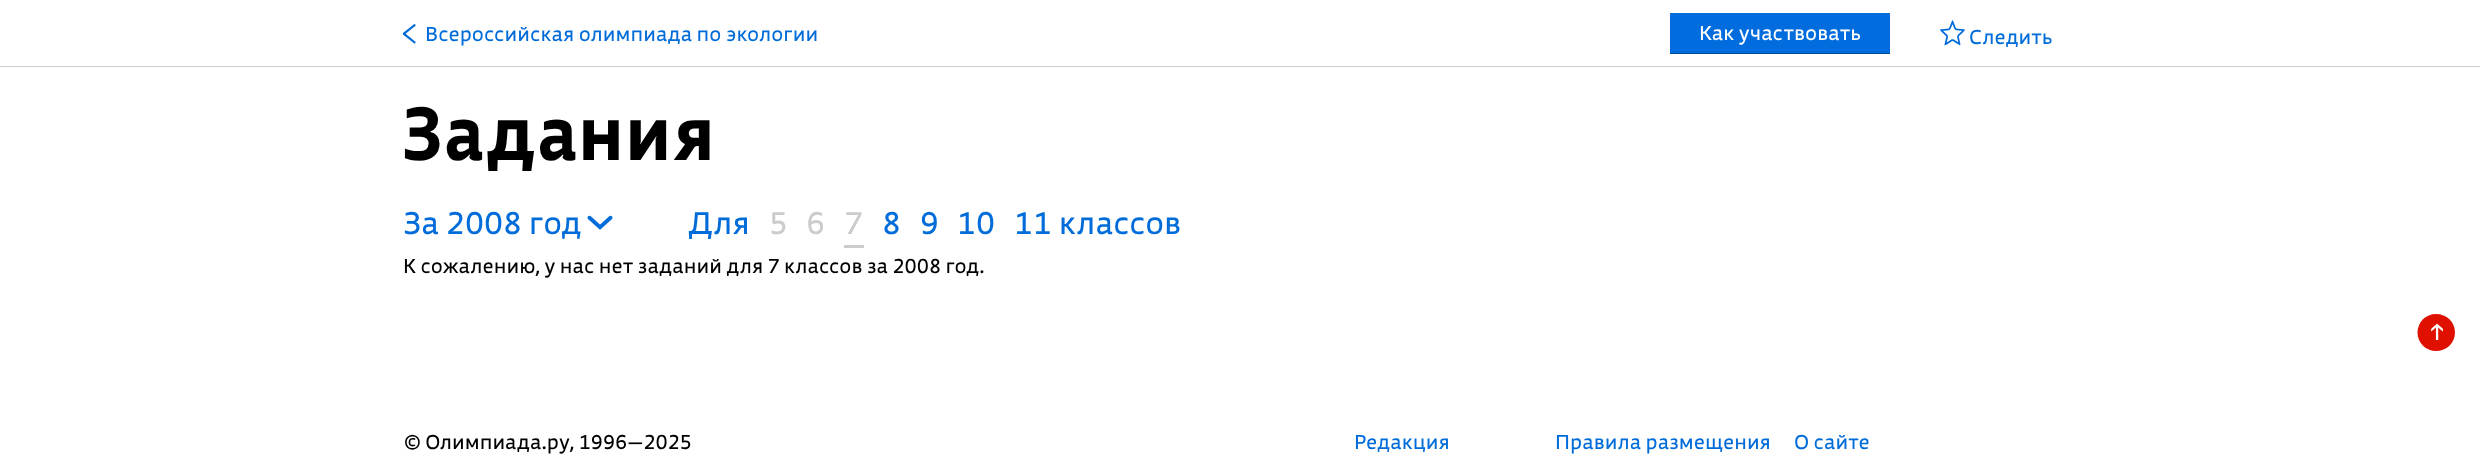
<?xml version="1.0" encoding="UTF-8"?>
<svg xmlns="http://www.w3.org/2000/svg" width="2480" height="468">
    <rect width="100%" height="100%" fill="#FFFFFF"/>
    <rect x="0" y="66" width="2480" height="1" fill="#CCCCCC"/>
    <image x="403" y="24" width="13" height="20" href="img_01.png"/>
    <text x="425" y="41" font-family="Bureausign" font-size="20" fill="#006CD9">Всероссийская олимпиада по экологии</text>
    <rect x="1670" y="13" width="220" height="40" fill="#006CDD"/>
    <rect x="1670" y="53" width="220" height="1" fill="#014A97"/>
    <text x="1699" y="40" font-family="Bureausign" font-size="20" fill="#FFFFFF">Как участвовать</text>
    <image x="1940" y="20" width="25" height="26" href="img_02.png"/>
    <text x="1969" y="44" font-family="Bureausign" font-size="20" fill="#006CD9">Следить</text>
    <text x="400" y="160" font-family="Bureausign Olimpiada" font-size="75" fill="#000000">Задания</text>
    <text x="403" y="234" font-family="Bureausign" font-size="31.25" fill="#006CD9">За 2008 год</text>
    <image x="587" y="215" width="26" height="15" href="img_03.png"/>
    <text x="688" y="234" font-family="Bureausign" font-size="31.25" fill="#006CD9">Для</text>
    <text x="769" y="234" font-family="Bureausign" font-size="31.25" fill="#CCCCCC">5</text>
    <text x="806" y="234" font-family="Bureausign" font-size="31.25" fill="#CCCCCC">6</text>
    <rect x="844" y="245" width="20" height="3" fill="#CCCCCC"/>
    <text x="844" y="234" font-family="Bureausign" font-size="31.25" fill="#CCCCCC">7</text>
    <text x="882" y="234" font-family="Bureausign" font-size="31.25" fill="#006CD9">8</text>
    <text x="920" y="234" font-family="Bureausign" font-size="31.25" fill="#006CD9">9</text>
    <text x="957" y="234" font-family="Bureausign" font-size="31.25" fill="#006CD9">10</text>
    <text x="1014" y="234" font-family="Bureausign" font-size="31.25" fill="#006CD9">11 классов</text>
    <text x="403" y="273" font-family="Bureausign" font-size="20" fill="#000000">К сожалению, у нас нет заданий для 7 классов за 2008 год.</text>
    <path d="M 2417.5 332.5 C 2417.5 322 2426 314 2436 314 C 2446.5 314 2455 322 2455 332.5 C 2455 343 2446.5 351 2436 351 C 2426 351 2417.5 343 2417.5 332.5 Z" fill="#E01000"/>
    <text x="2443" y="342" transform="rotate(-90 2443 342)" font-family="Bureausign" font-size="22" fill="#FFFFFF">→</text>
    <text x="404" y="449" font-family="Bureausign" font-size="20" fill="#000000">© Олимпиада.ру, 1996—2025</text>
    <text x="1354" y="449" font-family="Bureausign" font-size="20" fill="#006CD9">Редакция</text>
    <text x="1555" y="449" font-family="Bureausign" font-size="20" fill="#006CD9">Правила размещения</text>
    <text x="1794" y="449" font-family="Bureausign" font-size="20" fill="#006CD9">О сайте</text>
</svg>
